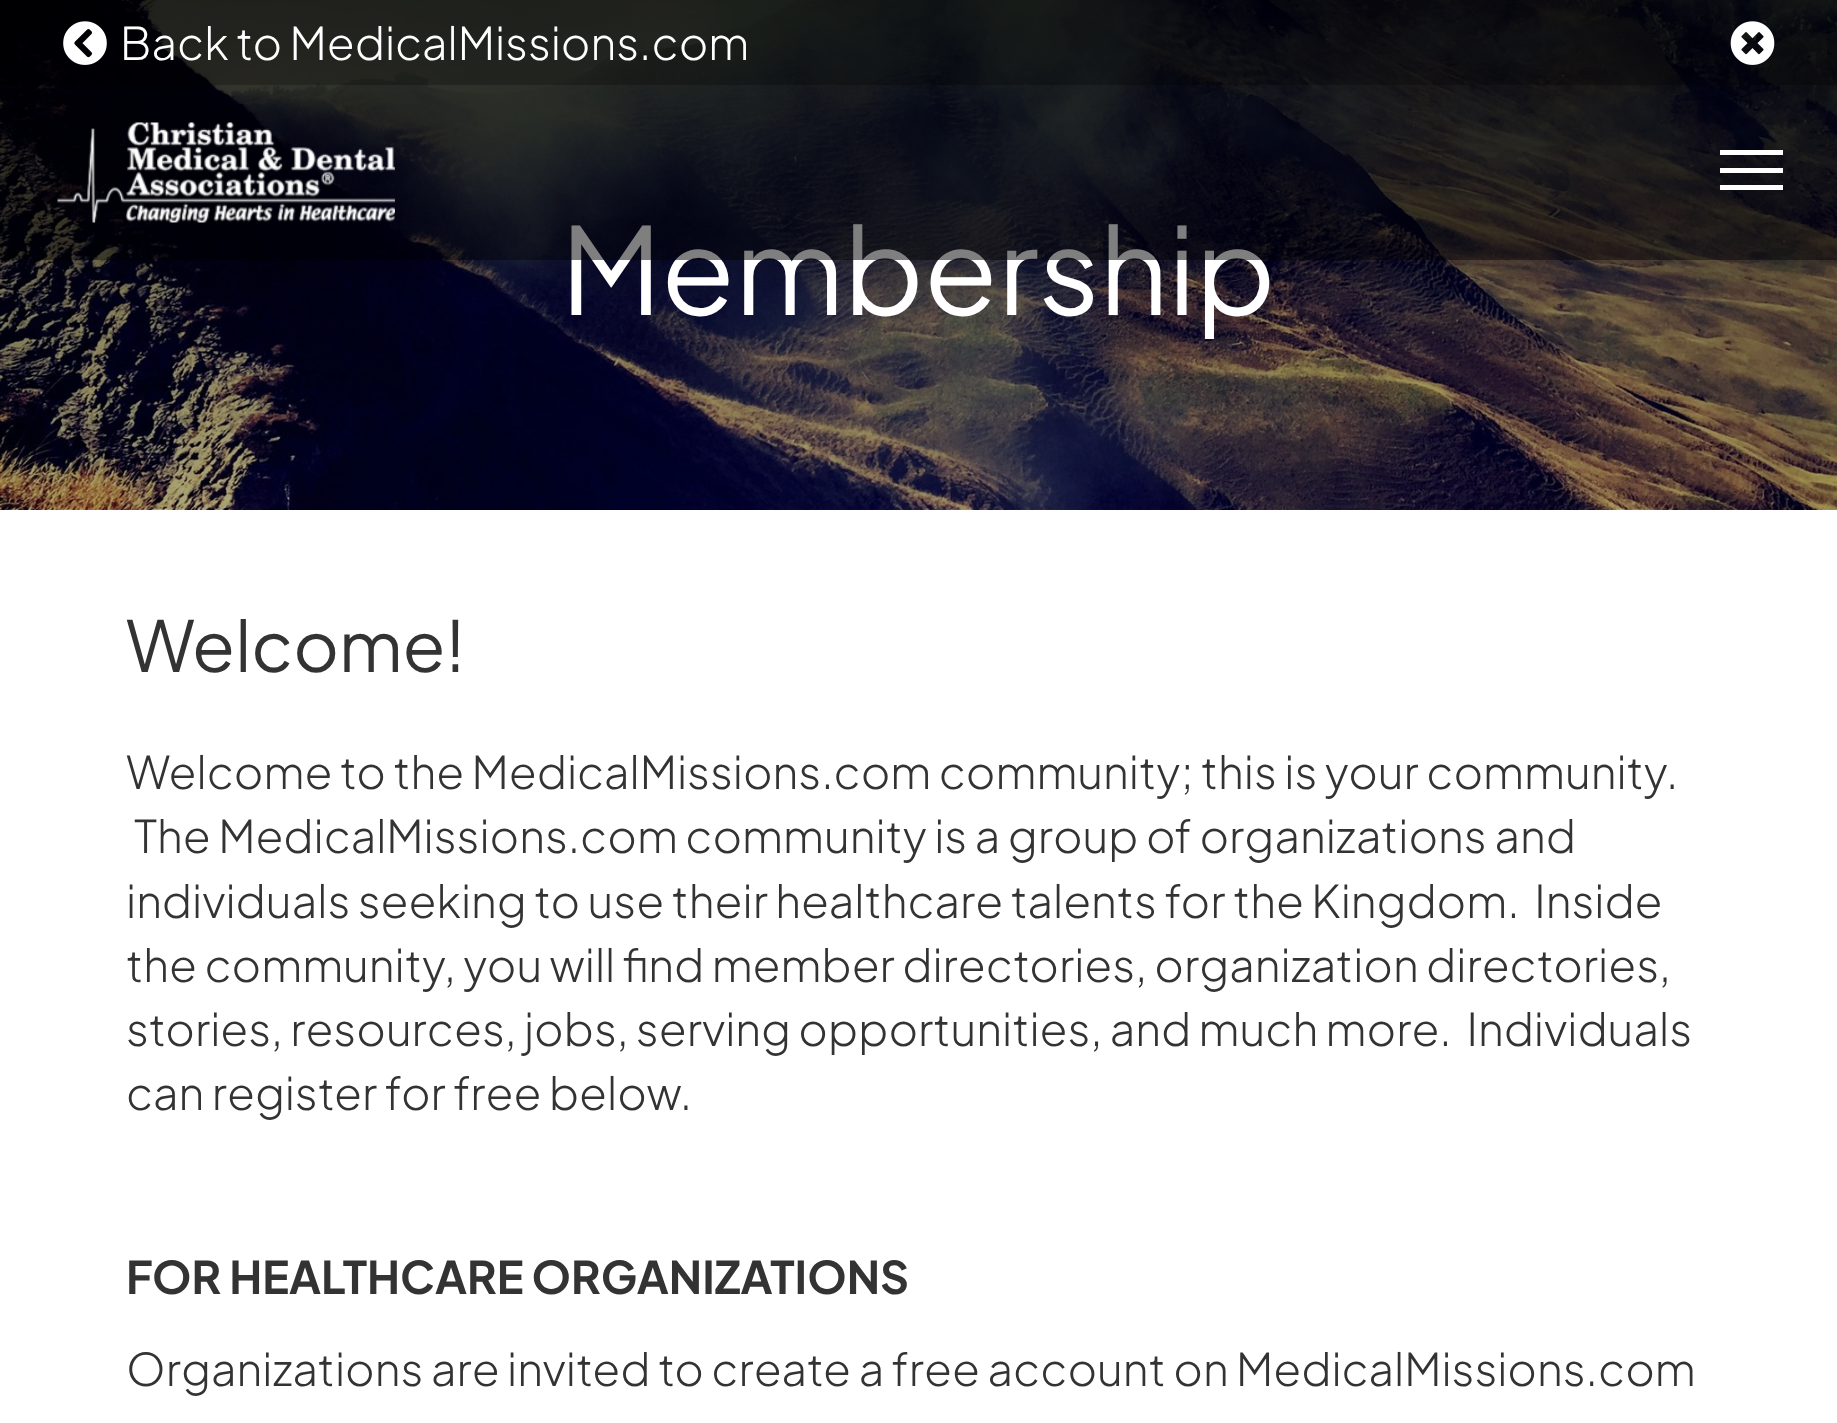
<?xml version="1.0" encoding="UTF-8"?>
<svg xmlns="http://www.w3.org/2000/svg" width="1837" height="1423">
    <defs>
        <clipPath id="clip1"><rect x="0" y="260" width="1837" height="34"/></clipPath>
        <filter id="blur1" x="-50%" y="-200%" width="200%" height="500%"><feGaussianBlur stdDeviation="17.5"/></filter>
    </defs>
    <rect width="100%" height="100%" fill="#FFFFFF"/>
    <image x="0" y="0" width="1837" height="510" href="img_04.png"/>
    <g clip-path="url(#clip1)">
        <rect x="0" y="15" width="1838" height="260" fill="#000000" fill-opacity="0.15" filter="url(#blur1)"/>
    </g>
    <text x="561" y="315" font-family="Plus Jakarta Sans" font-size="120" fill="#FFFFFF">Membership</text>
    <rect x="0" y="0" width="1837" height="260" fill="#000000" fill-opacity="0.5"/>
    <rect x="0" y="0" width="1837" height="85" fill="#000000" fill-opacity="0.25"/>
    <image x="63" y="21" width="44" height="44" href="img_01.png"/>
    <text x="120" y="60" font-family="Plus Jakarta Sans" font-size="45" font-weight="300" fill="#FFFFFF">Back to MedicalMissions.com</text>
    <image x="1730" y="21" width="45" height="44" href="img_02.png"/>
    <image x="57" y="122" width="338" height="101" href="img_03.png"/>
    <rect x="1720" y="150" width="63" height="5" fill="#FFFFFF"/>
    <rect x="1720" y="168" width="63" height="5" fill="#FFFFFF"/>
    <rect x="1720" y="185" width="63" height="5" fill="#FFFFFF"/>
    <text x="126" y="672" font-family="Plus Jakarta Sans" font-size="70" fill="#333333">Welcome!</text>
    <text x="126" y="789" font-family="Plus Jakarta Sans" font-size="45" font-weight="300" fill="#333333">Welcome to the MedicalMissions.com community; this is your community.</text>
    <text x="134" y="853" font-family="Plus Jakarta Sans" font-size="45" font-weight="300" fill="#333333">The MedicalMissions.com community is a group of organizations and</text>
    <text font-family="Plus Jakarta Sans" font-size="45" font-weight="300" fill="#333333" xml:space="preserve"><tspan x="126" y="918">individuals seeking to use their healthcare talents for the Kingdom.  Inside</tspan><tspan x="126" y="982">the community, you will find member directories, organization directories,</tspan><tspan x="126" y="1046">stories, resources, jobs, serving opportunities, and much more.  Individuals</tspan><tspan x="126" y="1110">can register for free below.</tspan></text>
    <text x="126" y="1294" font-family="Plus Jakarta Sans" font-size="45" font-weight="700" fill="#333333">FOR HEALTHCARE ORGANIZATIONS</text>
    <text x="126" y="1386" font-family="Plus Jakarta Sans" font-size="45" font-weight="300" fill="#333333">Organizations are invited to create a free account on MedicalMissions.com</text>
</svg>
